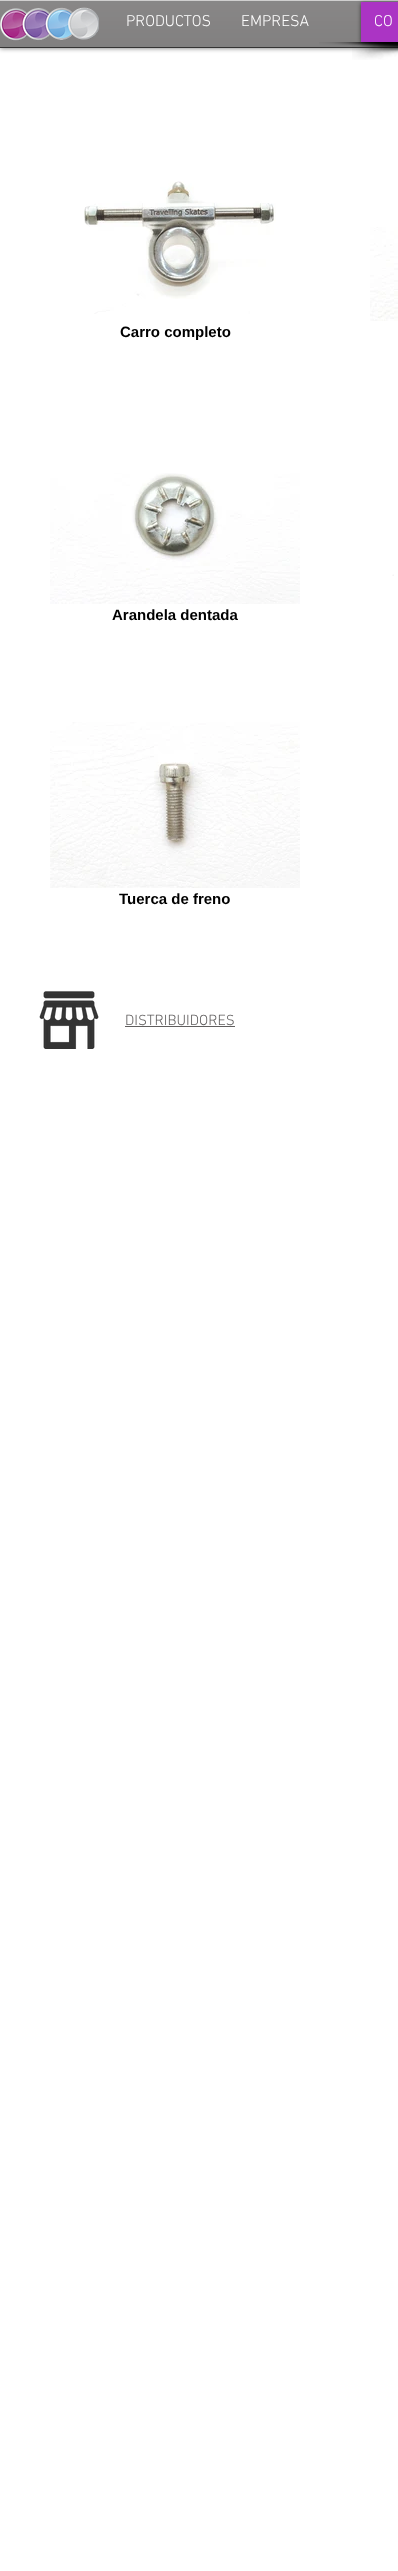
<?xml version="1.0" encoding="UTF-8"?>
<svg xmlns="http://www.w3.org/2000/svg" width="398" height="2571">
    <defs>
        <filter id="blur1" x="-50%" y="-200%" width="200%" height="500%"><feGaussianBlur stdDeviation="2.5"/></filter>
        <filter id="blur2" x="-50%" y="-200%" width="200%" height="500%"><feGaussianBlur stdDeviation="2"/></filter>
    </defs>
    <rect width="100%" height="100%" fill="#FFFFFF"/>
    <rect x="0" y="0" width="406" height="48" fill="#000000" fill-opacity="0.6" filter="url(#blur1)"/>
    <rect x="0" y="1" width="398" height="46" fill="#605E5E"/>
    <image x="0" y="1" width="398" height="46" href="img_01.png"/>
    <rect x="0" y="47" width="398" height="1" fill="#343333"/>
    <rect x="0" y="0" width="398" height="1" fill="#D0CFCF"/>
    <image x="0" y="7" width="99" height="34" href="img_02.png"/>
    <text x="126" y="26" font-family="'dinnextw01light'" font-size="16" font-weight="300" fill="#FFFFFF">PRODUCTOS</text>
    <text x="241" y="26" font-family="'dinnextw01light'" font-size="16" font-weight="300" fill="#FFFFFF">EMPRESA</text>
    <image x="352" y="42" width="46" height="18" href="img_04.png"/>
    <image x="319" y="42" width="79" height="9" href="img_03.png"/>
    <rect x="361" y="3" width="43" height="40" fill="#000000" fill-opacity="0.6" filter="url(#blur2)"/>
    <rect x="361" y="2" width="37" height="40" fill="#AB34C4"/>
    <text x="374" y="26" font-family="'dinnextw01light'" font-size="16" font-weight="300" fill="#FFFFFF">CO</text>
    <image x="370" y="227" width="28" height="94" href="img_05.png"/>
    <image x="84" y="181" width="192" height="133" href="img_06.png"/>
    <text x="120" y="337" font-family="Liberation Sans" font-size="15" font-weight="700" fill="#000000">Carro completo</text>
    <image x="392" y="574" width="2" height="2" href="img_07.png"/>
    <image x="50" y="473" width="250" height="131" href="img_08.png"/>
    <text x="112" y="620" font-family="Liberation Sans" font-size="15" font-weight="700" fill="#000000">Arandela dentada</text>
    <image x="50" y="722" width="250" height="166" href="img_09.png"/>
    <text x="119" y="904" font-family="Liberation Sans" font-size="15" font-weight="700" fill="#000000">Tuerca de freno</text>
    <image x="39" y="991" width="60" height="58" href="img_10.png"/>
    <text x="125" y="1025" font-family="'dinnextw01light'" font-size="15" font-weight="300" fill="#605E5E">DISTRIBUIDORES</text>
    <rect x="125" y="1026" width="110" height="1" fill="#605E5E"/>
</svg>
